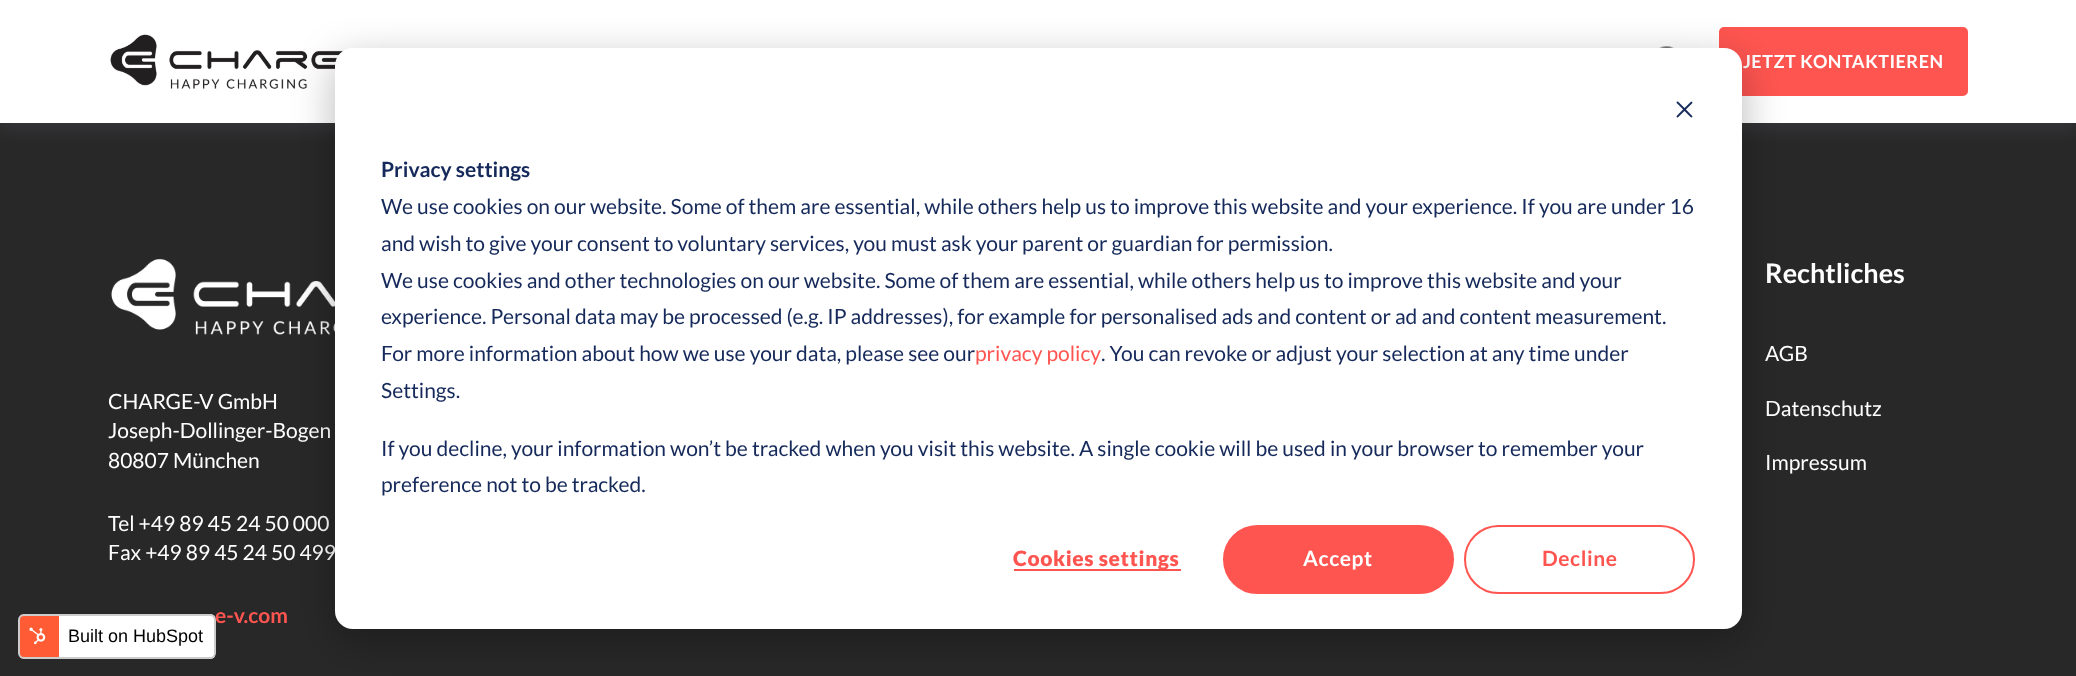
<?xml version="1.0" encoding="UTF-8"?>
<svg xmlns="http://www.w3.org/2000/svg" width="2076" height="676">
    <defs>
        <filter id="blur1" x="-50%" y="-200%" width="200%" height="500%"><feGaussianBlur stdDeviation="7.5"/></filter>
        <filter id="blur2" x="-50%" y="-200%" width="200%" height="500%"><feGaussianBlur stdDeviation="21"/></filter>
        <clipPath id="clip1"><rect x="18" y="614" width="198" height="45" rx="6"/></clipPath>
    </defs>
    <rect width="100%" height="100%" fill="#282829"/>
    <rect x="0" y="8" width="2076" height="123" fill="#9AA1B1" fill-opacity="0.1" filter="url(#blur1)"/>
    <rect x="0" y="0" width="2076" height="123" fill="#FFFFFF"/>
    <image x="110" y="34" width="233" height="55" href="img_01.png"/>
    <image x="1659" y="46" width="15" height="2" href="img_02.png"/>
    <rect x="1720" y="28" width="247" height="67" rx="4" fill="#FF5550" stroke="#FF5550" stroke-width="2"/>
    <text x="1743" y="68" font-family="Lato" font-size="18" font-weight="700" letter-spacing="0.5" fill="#FFFFFF">JETZT KONTAKTIEREN</text>
    <text x="1765" y="283" font-family="Lato" font-size="27" font-weight="700" fill="#FFFFFF">Rechtliches</text>
    <text x="1765" y="361" font-family="Lato" font-size="21" fill="#FFFFFF">AGB</text>
    <text x="1765" y="416" font-family="Lato" font-size="21" fill="#FFFFFF">Datenschutz</text>
    <text x="1765" y="470" font-family="Lato" font-size="21" fill="#FFFFFF">Impressum</text>
    <image x="111" y="258" width="224" height="77" href="img_03.png"/>
    <text font-family="Lato" font-size="21" fill="#FFFFFF">
        <tspan x="108" y="409">CHARGE-V GmbH</tspan>
        <tspan x="108" y="438">Joseph-Dollinger-Bogen</tspan>
        <tspan x="108" y="468">80807 München</tspan>
    </text>
    <text font-family="Lato" font-size="21" fill="#FFFFFF">
        <tspan x="108" y="531">Tel +49 89 45 24 50 000</tspan>
        <tspan x="108" y="560">Fax +49 89 45 24 50 499</tspan>
    </text>
    <text x="215" y="623" font-family="Lato" font-size="21" font-weight="700" fill="#FF5550">e-v.com</text>
    <rect x="335" y="60" width="1407" height="581" rx="18" fill="#000000" fill-opacity="0.28" filter="url(#blur2)"/>
    <rect x="335" y="48" width="1407" height="581" rx="18" fill="#FFFFFF"/>
    <image x="1676" y="101" width="17" height="17" href="img_04.png"/>
    <text x="381" y="177" font-family="Lato" font-size="21" font-weight="700" fill="#15295A">Privacy settings</text>
    <text font-family="Lato" font-size="21" fill="#15295A">
        <tspan x="381" y="214">We use cookies on our website. Some of them are essential, while others help us to improve this website and your experience. If you are under 16</tspan>
        <tspan x="381" y="251">and wish to give your consent to voluntary services, you must ask your parent or guardian for permission.</tspan>
        <tspan x="381" y="288">We use cookies and other technologies on our website. Some of them are essential, while others help us to improve this website and your</tspan>
        <tspan x="381" y="324">experience. Personal data may be processed (e.g. IP addresses), for example for personalised ads and content or ad and content measurement.</tspan>
        <tspan x="381" y="361">For more information about how we use your data, please see our</tspan>
    </text>
    <text x="975" y="361" font-family="Lato" font-size="21" fill="#FF5550">privacy policy</text>
    <text x="1101" y="361" font-family="Lato" font-size="21" fill="#15295A">. You can revoke or adjust your selection at any time under</text>
    <text x="381" y="398" font-family="Lato" font-size="21" fill="#15295A">Settings.</text>
    <text font-family="Lato" font-size="21" fill="#15295A">
        <tspan x="381" y="456">If you decline, your information won’t be tracked when you visit this website. A single cookie will be used in your browser to remember your</tspan>
        <tspan x="381" y="492">preference not to be tracked.</tspan>
    </text>
    <rect x="1014" y="569" width="167" height="2" fill="#FF5550"/>
    <text x="1013" y="566" font-family="Lato" font-size="21" font-weight="900" letter-spacing="0.6" fill="#FF5550">Cookies settings</text>
    <rect x="1224" y="526" width="229" height="67" rx="33.5" fill="#FF5550" stroke="#FF5550" stroke-width="2"/>
    <text x="1303" y="566" font-family="Lato" font-size="21" font-weight="700" letter-spacing="0.6" fill="#FFFFFF">Accept</text>
    <rect x="1465" y="526" width="229" height="67" rx="33.5" fill="none" stroke="#FF5550" stroke-width="2"/>
    <text x="1542" y="566" font-family="Lato" font-size="21" font-weight="700" letter-spacing="0.6" fill="#FF5550">Decline</text>
    <g clip-path="url(#clip1)">
        <rect x="20" y="614" width="39" height="45" fill="#FF5C35"/>
        <rect x="59" y="614" width="156" height="45" fill="#FFFFFF"/>
    </g>
    <rect x="19" y="615" width="196" height="43" rx="5" fill="none" stroke="#CCCCCC" stroke-width="2"/>
    <image x="29" y="627" width="17" height="18" href="img_05.png"/>
    <text x="68" y="642" font-family="Liberation Sans" font-size="18" fill="#000000">Built on HubSpot</text>
</svg>
